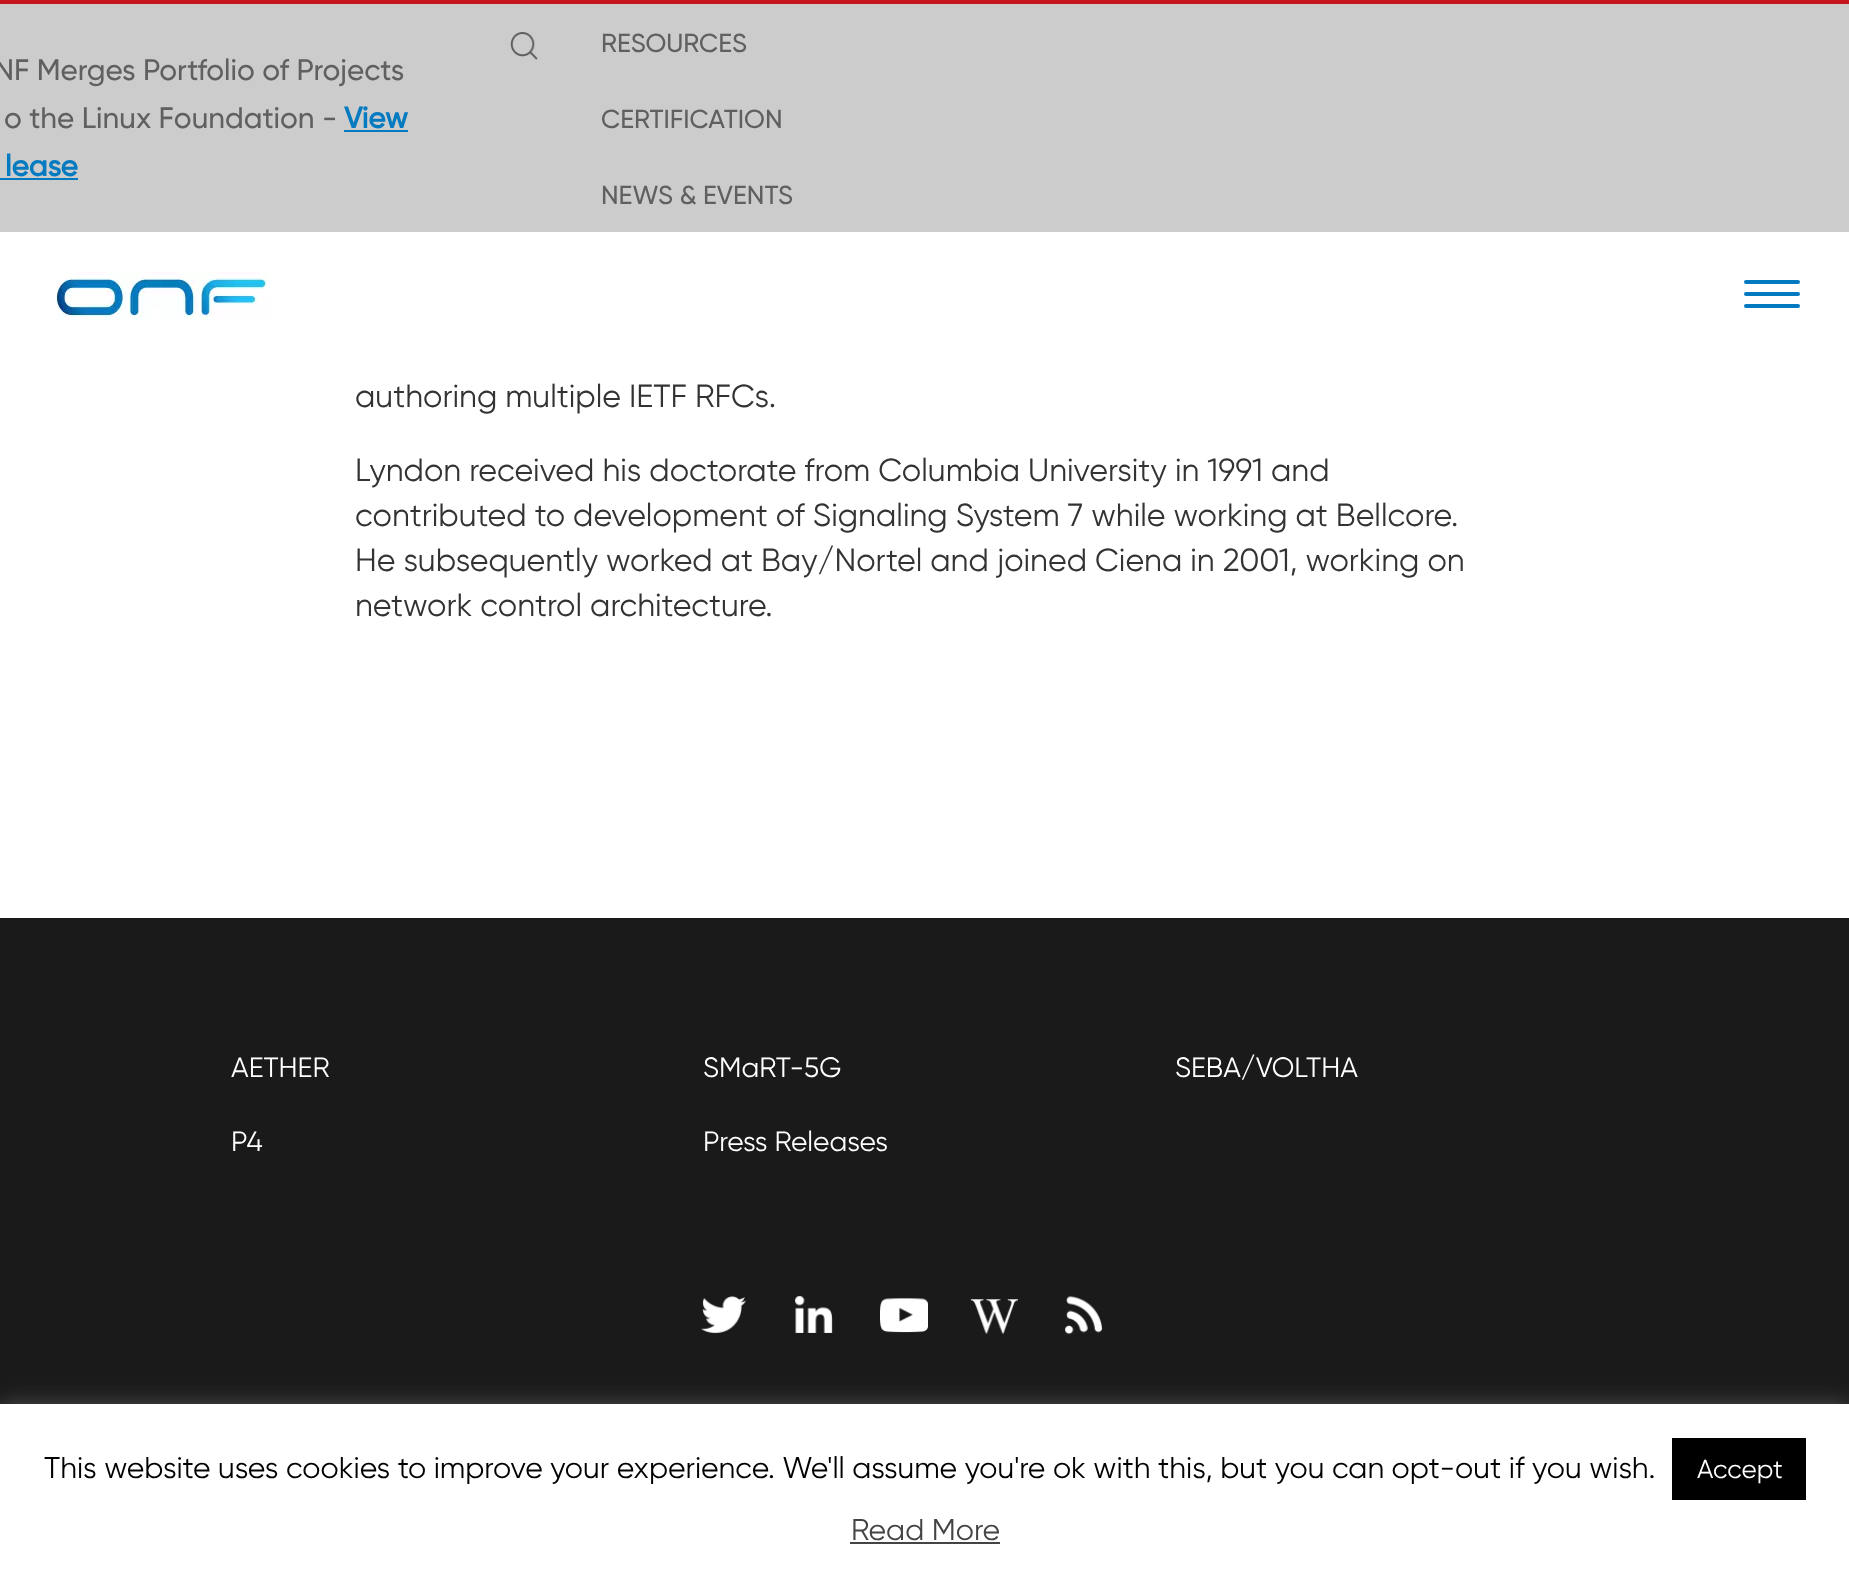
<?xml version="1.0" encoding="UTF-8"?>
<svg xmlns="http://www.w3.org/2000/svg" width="1849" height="1577">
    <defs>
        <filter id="blur1" x="-50%" y="-200%" width="200%" height="500%"><feGaussianBlur stdDeviation="10"/></filter>
    </defs>
    <rect width="100%" height="100%" fill="#FFFFFF"/>
    <rect x="0" y="4" width="1849" height="228" fill="#CCCCCC"/>
    <rect x="0" y="0" width="1849" height="4" fill="#C4161C"/>
    <text x="-6" y="80" font-family="Gilroy" font-size="29.6" font-weight="500" fill="#606060">NF Merges Portfolio of Projects</text>
    <text x="4" y="128" font-family="Gilroy" font-size="29.6" font-weight="500" fill="#606060">o the Linux Foundation -</text>
    <text x="344" y="128" font-family="Gilroy" font-size="29.6" font-weight="700" fill="#047BC1">View</text>
    <rect x="344" y="130" width="64" height="2" fill="#047BC1"/>
    <text x="5" y="176" font-family="Gilroy" font-size="29.6" font-weight="700" fill="#047BC1">lease</text>
    <rect x="0" y="178" width="78" height="2" fill="#047BC1"/>
    <image x="510" y="32" width="28" height="28" href="img_01.png"/>
    <text x="601" y="52" font-family="Gilroy" font-size="26" font-weight="500" fill="#606060">RESOURCES</text>
    <text x="601" y="128" font-family="Gilroy" font-size="26" font-weight="500" fill="#606060">CERTIFICATION</text>
    <text x="601" y="204" font-family="Gilroy" font-size="26" font-weight="500" fill="#606060">NEWS &amp; EVENTS</text>
    <image x="54" y="272" width="216" height="49" href="img_02.png"/>
    <rect x="1744" y="280" width="56" height="4" rx="2" fill="#047BC1"/>
    <rect x="1744" y="292" width="56" height="4" rx="2" fill="#047BC1"/>
    <rect x="1744" y="304" width="56" height="4" rx="2" fill="#047BC1"/>
    <text x="355" y="407" font-family="Gilroy" font-size="32" fill="#333333">authoring multiple IETF RFCs.</text>
    <text font-family="Gilroy" font-size="32" fill="#333333">
        <tspan x="355" y="481">Lyndon received his doctorate from Columbia University in 1991 and</tspan>
        <tspan x="355" y="526">contributed to development of Signaling System 7 while working at Bellcore.</tspan>
        <tspan x="355" y="571">He subsequently worked at Bay/Nortel and joined Ciena in 2001, working on</tspan>
        <tspan x="355" y="616">network control architecture.</tspan>
    </text>
    <rect x="0" y="918" width="1849" height="486" fill="#1A1A1A"/>
    <text x="231" y="1077" font-family="Gilroy" font-size="28" fill="#FFFFFF">AETHER</text>
    <text x="703" y="1077" font-family="Gilroy" font-size="28" fill="#FFFFFF">SMaRT-5G</text>
    <text x="1175" y="1077" font-family="Gilroy" font-size="28" fill="#FFFFFF">SEBA/VOLTHA</text>
    <text x="231" y="1151" font-family="Gilroy" font-size="28" fill="#FFFFFF">P4</text>
    <text x="703" y="1151" font-family="Gilroy" font-size="28" fill="#FFFFFF">Press Releases</text>
    <image x="701" y="1296" width="45" height="38" href="img_03.png"/>
    <image x="795" y="1295" width="38" height="38" href="img_04.png"/>
    <image x="880" y="1298" width="48" height="35" href="img_05.png"/>
    <image x="970" y="1299" width="48" height="35" href="img_06.png"/>
    <image x="1065" y="1296" width="38" height="39" href="img_07.png"/>
    <rect x="0" y="1402" width="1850" height="174" fill="#ACABAB" fill-opacity="0.3" filter="url(#blur1)"/>
    <rect x="0" y="1404" width="1849" height="173" fill="#FFFFFF"/>
    <text x="44" y="1478" font-family="Gilroy" font-size="30" fill="#000000">This website uses cookies to improve your experience. We'll assume you're ok with this, but you can opt-out if you wish.</text>
    <rect x="1672" y="1438" width="134" height="62" fill="#000000"/>
    <text x="1697" y="1478" font-family="Gilroy" font-size="26" fill="#FFFFFF">Accept</text>
    <text x="851" y="1540" font-family="Gilroy" font-size="30" fill="#444444">Read More</text>
    <rect x="850" y="1542" width="150" height="2" fill="#444444"/>
</svg>
